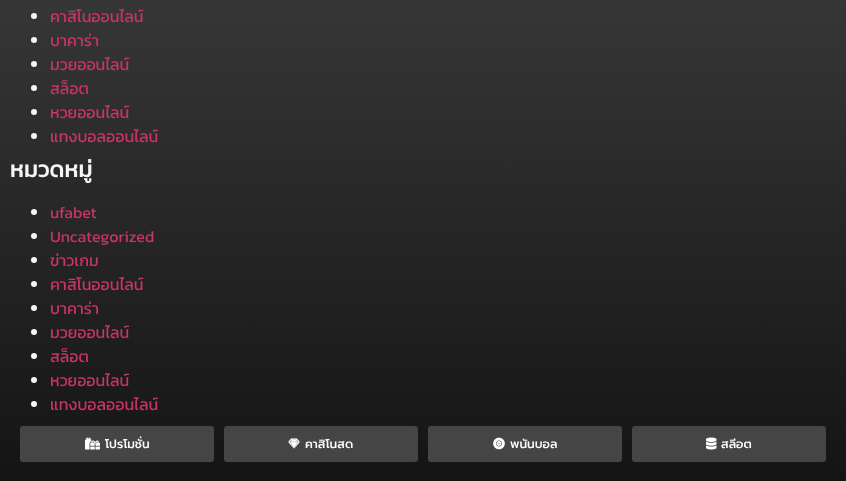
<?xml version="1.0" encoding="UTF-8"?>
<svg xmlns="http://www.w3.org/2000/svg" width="846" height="481">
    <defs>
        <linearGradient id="g1" gradientUnits="userSpaceOnUse" x1="423" y1="-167" x2="423" y2="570"><stop offset="0" stop-color="#424242"/><stop offset="1" stop-color="#0E0E0E"/></linearGradient>
    </defs>
    <rect width="100%" height="100%" fill="#FFFFFF"/>
    <rect x="0" y="0" width="846" height="481" fill="url(#g1)"/>
    <circle cx="34" cy="16" r="3" fill="#F5F5F5"/>
    <text x="50" y="22" font-family="Kanit" font-size="16" fill="#CC3366">คาสิโนออนไลน์</text>
    <circle cx="34" cy="40" r="3" fill="#F5F5F5"/>
    <text x="50" y="46" font-family="Kanit" font-size="16" fill="#CC3366">บาคาร่า</text>
    <circle cx="34" cy="64" r="3" fill="#F5F5F5"/>
    <text x="50" y="70" font-family="Kanit" font-size="16" fill="#CC3366">มวยออนไลน์</text>
    <circle cx="34" cy="88" r="3" fill="#F5F5F5"/>
    <text x="50" y="94" font-family="Kanit" font-size="16" fill="#CC3366">สล็อต</text>
    <circle cx="34" cy="112" r="3" fill="#F5F5F5"/>
    <text x="50" y="118" font-family="Kanit" font-size="16" fill="#CC3366">หวยออนไลน์</text>
    <circle cx="34" cy="136" r="3" fill="#F5F5F5"/>
    <text x="50" y="142" font-family="Kanit" font-size="16" fill="#CC3366">แทงบอลออนไลน์</text>
    <text x="10" y="177" font-family="Kanit" font-size="23" font-weight="500" fill="#F5F5F5">หมวดหมู่</text>
    <circle cx="34" cy="212" r="3" fill="#F5F5F5"/>
    <text x="50" y="218" font-family="Kanit" font-size="16" fill="#CC3366">ufabet</text>
    <circle cx="34" cy="236" r="3" fill="#F5F5F5"/>
    <text x="50" y="242" font-family="Kanit" font-size="16" fill="#CC3366">Uncategorized</text>
    <circle cx="34" cy="260" r="3" fill="#F5F5F5"/>
    <text x="50" y="266" font-family="Kanit" font-size="16" fill="#CC3366">ข่าวเกม</text>
    <circle cx="34" cy="284" r="3" fill="#F5F5F5"/>
    <text x="50" y="290" font-family="Kanit" font-size="16" fill="#CC3366">คาสิโนออนไลน์</text>
    <circle cx="34" cy="308" r="3" fill="#F5F5F5"/>
    <text x="50" y="314" font-family="Kanit" font-size="16" fill="#CC3366">บาคาร่า</text>
    <circle cx="34" cy="332" r="3" fill="#F5F5F5"/>
    <text x="50" y="338" font-family="Kanit" font-size="16" fill="#CC3366">มวยออนไลน์</text>
    <circle cx="34" cy="356" r="3" fill="#F5F5F5"/>
    <text x="50" y="362" font-family="Kanit" font-size="16" fill="#CC3366">สล็อต</text>
    <circle cx="34" cy="380" r="3" fill="#F5F5F5"/>
    <text x="50" y="386" font-family="Kanit" font-size="16" fill="#CC3366">หวยออนไลน์</text>
    <circle cx="34" cy="404" r="3" fill="#F5F5F5"/>
    <text x="50" y="410" font-family="Kanit" font-size="16" fill="#CC3366">แทงบอลออนไลน์</text>
    <rect x="20" y="426" width="194" height="36" rx="3" fill="#454545"/>
    <image x="85" y="437" width="15" height="13" href="img_01.png"/>
    <text x="105" y="448" font-family="Prompt" font-size="12" font-weight="500" fill="#FFFFFF">โปรโมชั่น</text>
    <rect x="224" y="426" width="194" height="36" rx="3" fill="#454545"/>
    <image x="288" y="438" width="12" height="11" href="img_02.png"/>
    <text x="305" y="448" font-family="Prompt" font-size="12" font-weight="500" fill="#FFFFFF">คาสิโนสด</text>
    <rect x="428" y="426" width="194" height="36" rx="3" fill="#454545"/>
    <image x="493" y="437" width="12" height="13" href="img_03.png"/>
    <text x="510" y="448" font-family="Prompt" font-size="12" font-weight="500" fill="#FFFFFF">พนันบอล</text>
    <rect x="632" y="426" width="194" height="36" rx="3" fill="#454545"/>
    <image x="706" y="437" width="11" height="13" href="img_04.png"/>
    <text x="721" y="448" font-family="Prompt" font-size="12" font-weight="500" fill="#FFFFFF">สลีอต</text>
</svg>
